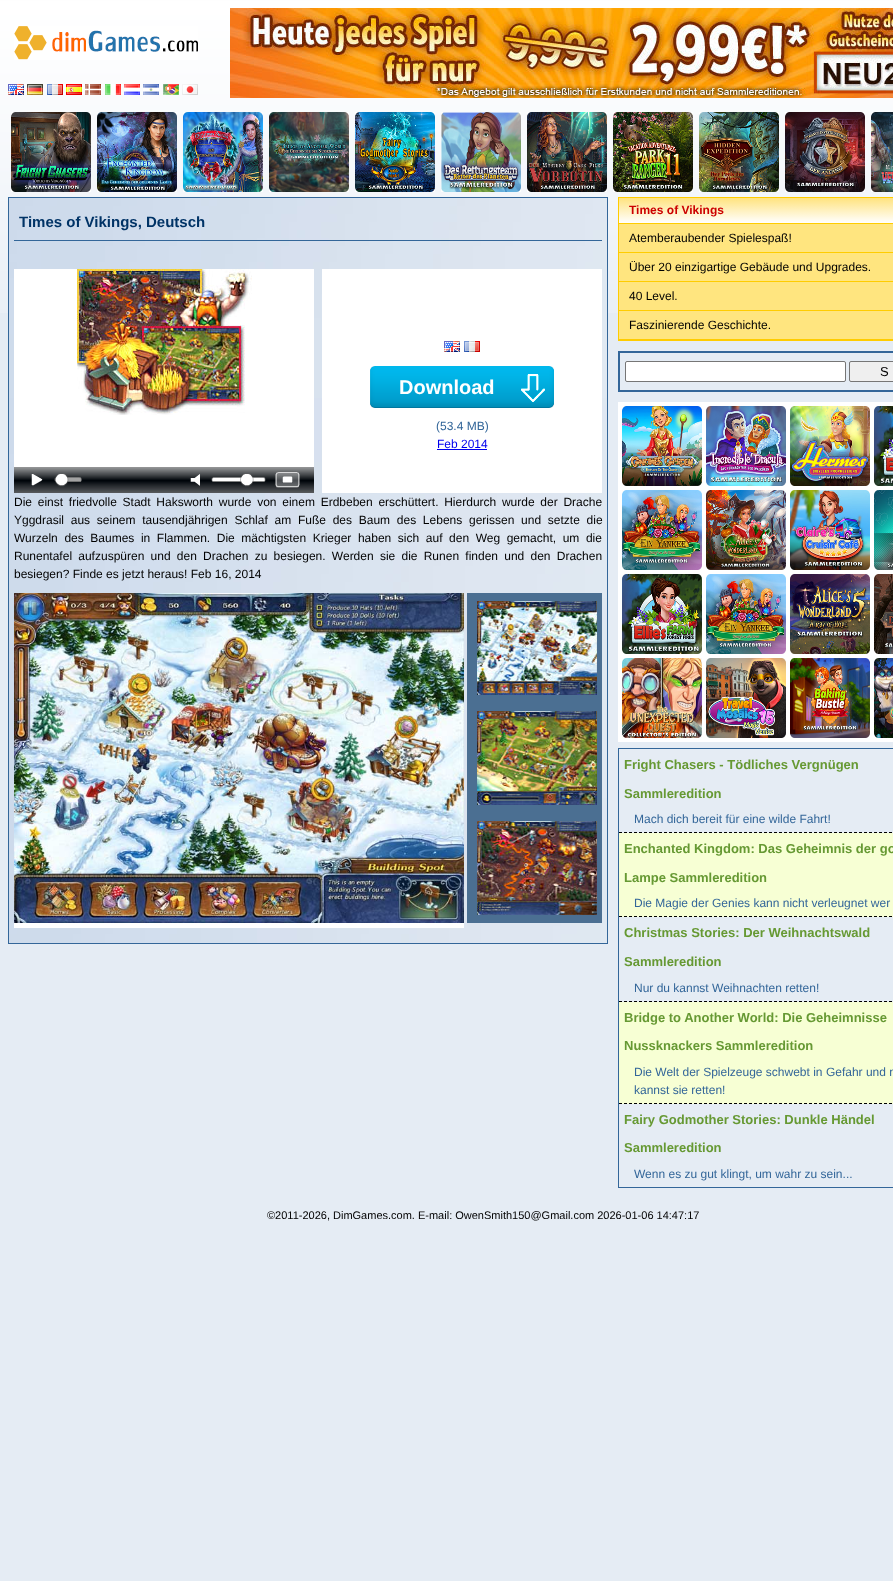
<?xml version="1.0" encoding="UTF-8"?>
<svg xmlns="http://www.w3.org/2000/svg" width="893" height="1581">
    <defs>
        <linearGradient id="g1" gradientUnits="userSpaceOnUse" x1="619" y1="198" x2="619" y2="223"><stop offset="0" stop-color="#FFE37F"/><stop offset="1" stop-color="#FFFFFF"/></linearGradient>
    </defs>
    <rect width="100%" height="100%" fill="#E5ECF4"/>
    <image x="0" y="0" width="893" height="313" href="img_01.png"/>
    <image x="14" y="26" width="184" height="34" href="img_02.png"/>
    <image x="230" y="8" width="663" height="90" href="img_03.png"/>
    <image x="8" y="84" width="16" height="11" href="img_04.png"/>
    <image x="27" y="84" width="16" height="11" href="img_05.png"/>
    <image x="47" y="84" width="16" height="11" href="img_06.png"/>
    <image x="66" y="84" width="16" height="11" href="img_07.png"/>
    <image x="85" y="84" width="16" height="11" href="img_08.png"/>
    <image x="105" y="84" width="16" height="11" href="img_09.png"/>
    <image x="124" y="84" width="16" height="11" href="img_10.png"/>
    <image x="143" y="84" width="16" height="11" href="img_11.png"/>
    <image x="163" y="84" width="16" height="11" href="img_12.png"/>
    <image x="182" y="84" width="16" height="11" href="img_13.png"/>
    <image x="11" y="112" width="80" height="80" href="img_14.png"/>
    <image x="97" y="112" width="80" height="80" href="img_15.png"/>
    <image x="183" y="112" width="80" height="80" href="img_16.png"/>
    <image x="269" y="112" width="80" height="80" href="img_17.png"/>
    <image x="355" y="112" width="80" height="80" href="img_18.png"/>
    <image x="441" y="112" width="80" height="80" href="img_19.png"/>
    <image x="527" y="112" width="80" height="80" href="img_20.png"/>
    <image x="613" y="112" width="80" height="80" href="img_21.png"/>
    <image x="699" y="112" width="80" height="80" href="img_22.png"/>
    <image x="785" y="112" width="80" height="80" href="img_23.png"/>
    <image x="871" y="112" width="22" height="80" href="img_24.png"/>
    <image x="9" y="198" width="598" height="745" href="img_25.png"/>
    <rect x="8.5" y="197.5" width="599" height="746" fill="none" stroke="#336699"/>
    <rect x="14" y="240" width="588" height="1" fill="#336699"/>
    <text x="19" y="227" font-family="Liberation Sans" font-size="15" font-weight="700" fill="#003366">Times of Vikings, Deutsch</text>
    <rect x="14" y="269" width="300" height="198" fill="#FFFFFF"/>
    <image x="14" y="467" width="300" height="26" href="img_26.png"/>
    <image x="77" y="269" width="175" height="146" href="img_27.png"/>
    <rect x="322" y="269" width="280" height="224" fill="#FFFFFF"/>
    <image x="444" y="341" width="16" height="11" href="img_04.png"/>
    <image x="464" y="341" width="16" height="11" href="img_06.png"/>
    <image x="370" y="366" width="184" height="42" href="img_28.png"/>
    <text x="399" y="394" font-family="Liberation Sans" font-size="20" font-weight="700" fill="#FFFFFF">Download</text>
    <text x="436" y="430" font-family="Liberation Sans" font-size="12" fill="#336699">(53.4 MB)</text>
    <text x="437" y="448" font-family="Liberation Sans" font-size="12" fill="#0000EE">Feb 2014</text>
    <rect x="437" y="449" width="50" height="1" fill="#0000EE"/>
    <text font-family="Liberation Sans" font-size="12" fill="#000000">
        <tspan x="14" y="506" word-spacing="2.4">Die einst friedvolle Stadt Haksworth wurde von einem Erdbeben erschüttert. Hierdurch wurde der Drache</tspan>
        <tspan x="14" y="524" word-spacing="3.4">Yggdrasil aus seinem tausendjährigen Schlaf am Fuße des Baum des Lebens gerissen und setzte die</tspan>
        <tspan x="14" y="542" word-spacing="3.25">Wurzeln des Baumes in Flammen. Die mächtigsten Krieger haben sich auf den Weg gemacht, um die</tspan>
        <tspan x="14" y="560" word-spacing="2.9">Runentafel aufzuspüren und den Drachen zu besiegen. Werden sie die Runen finden und den Drachen</tspan>
        <tspan x="14" y="578">besiegen? Finde es jetzt heraus! Feb 16, 2014</tspan>
    </text>
    <rect x="14" y="923" width="450" height="5" fill="#FFFFFF"/>
    <image x="14" y="593" width="450" height="330" href="img_29.png"/>
    <rect x="467" y="593" width="135" height="330" fill="#4B6F92"/>
    <image x="477" y="601" width="120" height="94" href="img_30.png"/>
    <image x="477" y="711" width="120" height="94" href="img_31.png"/>
    <image x="477" y="821" width="120" height="94" href="img_32.png"/>
    <rect x="619" y="224" width="274" height="115" fill="#FFE57F"/>
    <rect x="618.5" y="197.5" width="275" height="143" fill="none" stroke="#FFCC00"/>
    <rect x="619" y="198" width="274" height="25" fill="url(#g1)"/>
    <rect x="619" y="223" width="274" height="1" fill="#FFCC00"/>
    <text x="629" y="214" font-family="Liberation Sans" font-size="12" font-weight="700" fill="#CC0000">Times of Vikings</text>
    <rect x="619" y="252" width="274" height="1" fill="#FFCC00"/>
    <text x="629" y="242" font-family="Liberation Sans" font-size="12" fill="#000000">Atemberaubender Spielespaß!</text>
    <rect x="619" y="281" width="274" height="1" fill="#FFCC00"/>
    <text x="629" y="271" font-family="Liberation Sans" font-size="12" fill="#000000">Über 20 einzigartige Gebäude und Upgrades.</text>
    <rect x="619" y="310" width="274" height="1" fill="#FFCC00"/>
    <text x="629" y="300" font-family="Liberation Sans" font-size="12" fill="#000000">40 Level.</text>
    <rect x="619" y="339" width="274" height="1" fill="#FFCC00"/>
    <text x="629" y="329" font-family="Liberation Sans" font-size="12" fill="#000000">Faszinierende Geschichte.</text>
    <rect x="619" y="352" width="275" height="39" fill="none" stroke="#336699" stroke-width="2"/>
    <rect x="625.5" y="361.5" width="220" height="20" rx="1.5" fill="#FFFFFF" stroke="#767676"/>
    <rect x="849.5" y="361.5" width="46" height="20" rx="1.5" fill="#EFEFEF" stroke="#767676"/>
    <text x="880" y="376" font-family="Liberation Sans" font-size="13" fill="#000000">S</text>
    <rect x="618" y="402" width="275" height="84" fill="#FFFFFF"/>
    <image x="622" y="406" width="80" height="80" href="img_33.png"/>
    <image x="706" y="406" width="80" height="80" href="img_34.png"/>
    <image x="790" y="406" width="80" height="80" href="img_35.png"/>
    <image x="874" y="406" width="19" height="80" href="img_36.png"/>
    <rect x="618" y="486" width="275" height="84" fill="#FFFFFF"/>
    <image x="622" y="490" width="80" height="80" href="img_37.png"/>
    <image x="706" y="490" width="80" height="80" href="img_38.png"/>
    <image x="790" y="490" width="80" height="80" href="img_39.png"/>
    <image x="874" y="490" width="19" height="80" href="img_40.png"/>
    <rect x="618" y="570" width="275" height="84" fill="#FFFFFF"/>
    <image x="622" y="574" width="80" height="80" href="img_41.png"/>
    <image x="706" y="574" width="80" height="80" href="img_42.png"/>
    <image x="790" y="574" width="80" height="80" href="img_43.png"/>
    <image x="874" y="574" width="19" height="80" href="img_44.png"/>
    <rect x="618" y="654" width="275" height="88" fill="#FFFFFF"/>
    <image x="622" y="658" width="80" height="80" href="img_45.png"/>
    <image x="706" y="658" width="80" height="80" href="img_46.png"/>
    <image x="790" y="658" width="80" height="80" href="img_47.png"/>
    <image x="874" y="658" width="19" height="80" href="img_48.png"/>
    <rect x="618.5" y="748.5" width="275" height="439" fill="none" stroke="#336699"/>
    <path d="M 619 832.5 H 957" fill="none" stroke="#000000" stroke-dasharray="3 2"/>
    <text x="624" y="769" font-family="Liberation Sans" font-size="13" font-weight="700" fill="#669933">Fright Chasers - Tödliches Vergnügen</text>
    <text x="624" y="798" font-family="Liberation Sans" font-size="13" font-weight="700" fill="#669933">Sammleredition</text>
    <text x="634" y="823" font-family="Liberation Sans" font-size="12" fill="#336699">Mach dich bereit für eine wilde Fahrt!</text>
    <rect x="619" y="833" width="274" height="84" fill="#F7FFD4"/>
    <path d="M 619 916.5 H 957" fill="none" stroke="#000000" stroke-dasharray="3 2"/>
    <text x="624" y="853" font-family="Liberation Sans" font-size="13" font-weight="700" fill="#669933">Enchanted Kingdom: Das Geheimnis der go</text>
    <text x="624" y="882" font-family="Liberation Sans" font-size="13" font-weight="700" fill="#669933">Lampe Sammleredition</text>
    <text x="634" y="907" font-family="Liberation Sans" font-size="12" fill="#336699">Die Magie der Genies kann nicht verleugnet wer</text>
    <path d="M 619 1001.5 H 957" fill="none" stroke="#000000" stroke-dasharray="3 2"/>
    <text x="624" y="937" font-family="Liberation Sans" font-size="13" font-weight="700" fill="#669933">Christmas Stories: Der Weihnachtswald</text>
    <text x="624" y="966" font-family="Liberation Sans" font-size="13" font-weight="700" fill="#669933">Sammleredition</text>
    <text x="634" y="992" font-family="Liberation Sans" font-size="12" fill="#336699">Nur du kannst Weihnachten retten!</text>
    <rect x="619" y="1002" width="274" height="102" fill="#F7FFD4"/>
    <path d="M 619 1103.5 H 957" fill="none" stroke="#000000" stroke-dasharray="3 2"/>
    <text x="624" y="1022" font-family="Liberation Sans" font-size="13" font-weight="700" fill="#669933">Bridge to Another World: Die Geheimnisse</text>
    <text x="624" y="1050" font-family="Liberation Sans" font-size="13" font-weight="700" fill="#669933">Nussknackers Sammleredition</text>
    <text font-family="Liberation Sans" font-size="12" fill="#336699">
        <tspan x="634" y="1076">Die Welt der Spielzeuge schwebt in Gefahr und n</tspan>
        <tspan x="634" y="1094">kannst sie retten!</tspan>
    </text>
    <text x="624" y="1124" font-family="Liberation Sans" font-size="13" font-weight="700" fill="#669933">Fairy Godmother Stories: Dunkle Händel</text>
    <text x="624" y="1152" font-family="Liberation Sans" font-size="13" font-weight="700" fill="#669933">Sammleredition</text>
    <text x="634" y="1178" font-family="Liberation Sans" font-size="12" fill="#336699">Wenn es zu gut klingt, um wahr zu sein...</text>
    <text x="267" y="1219" font-family="Liberation Sans" font-size="11" fill="#000000">©2011-2026, DimGames.com. E-mail: OwenSmith150@Gmail.com 2026-01-06 14:47:17</text>
</svg>
